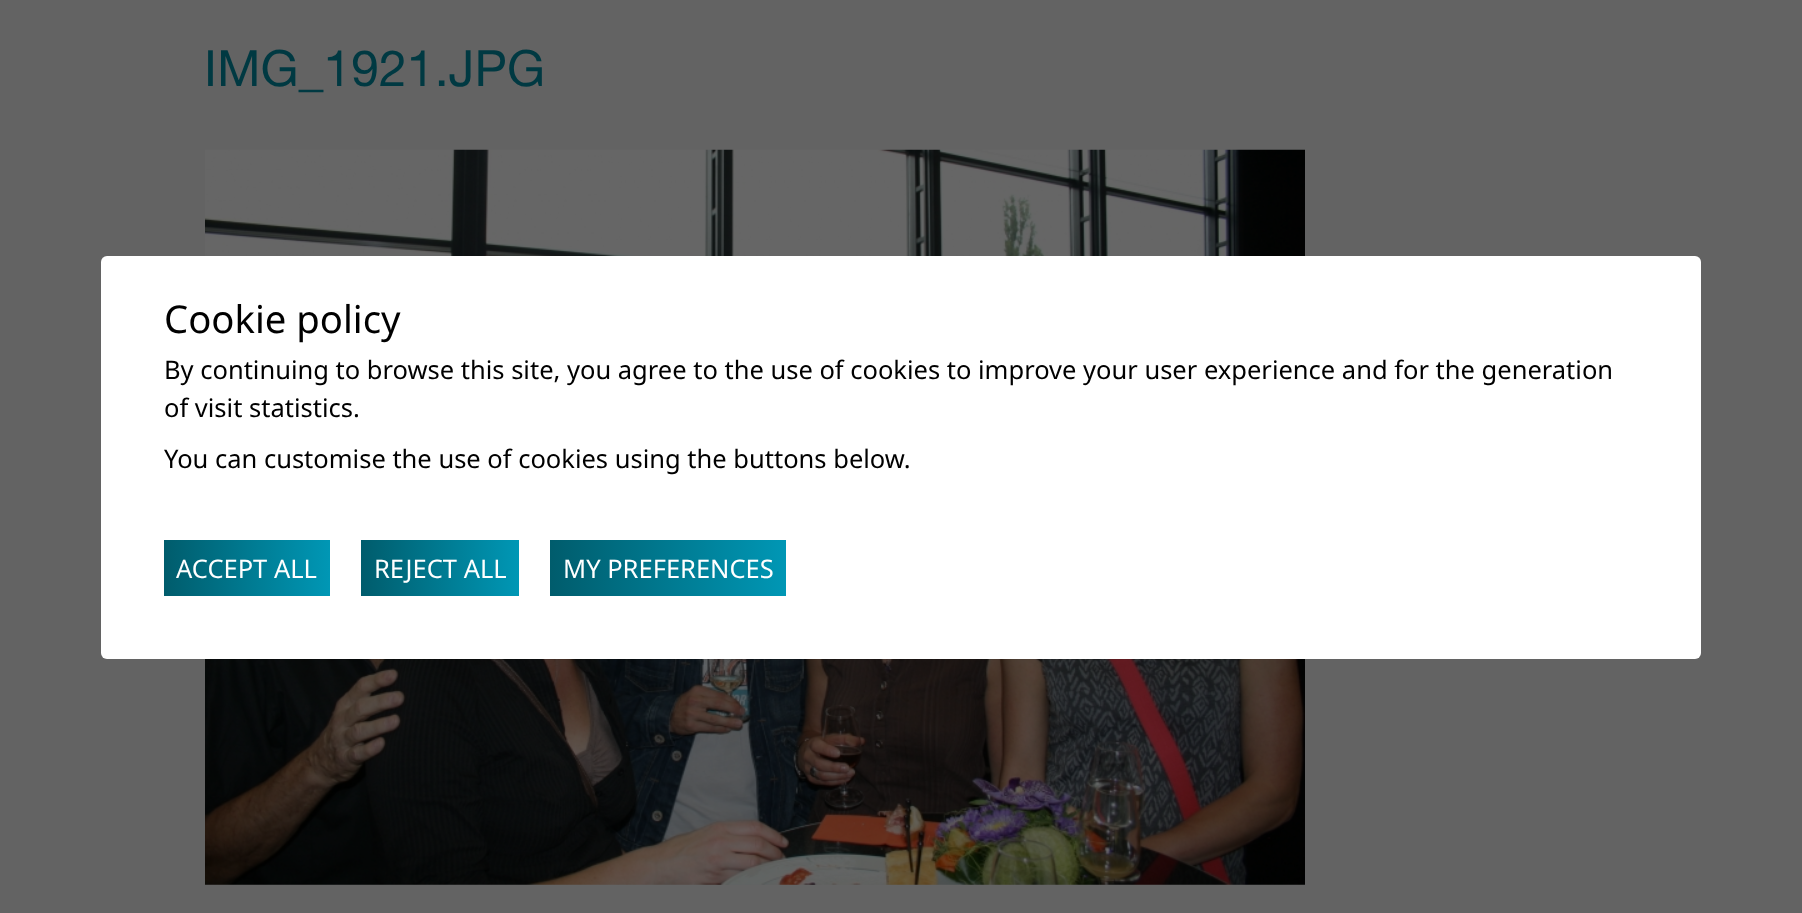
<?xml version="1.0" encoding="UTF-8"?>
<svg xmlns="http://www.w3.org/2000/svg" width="1802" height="913">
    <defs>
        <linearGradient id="g1" gradientUnits="userSpaceOnUse" x1="164" y1="568" x2="330" y2="568"><stop offset="0" stop-color="#005C6C"/><stop offset="1" stop-color="#0097B5"/></linearGradient>
        <linearGradient id="g2" gradientUnits="userSpaceOnUse" x1="361" y1="568" x2="519" y2="568"><stop offset="0" stop-color="#005C6C"/><stop offset="1" stop-color="#0097B5"/></linearGradient>
        <linearGradient id="g3" gradientUnits="userSpaceOnUse" x1="550" y1="568" x2="786" y2="568"><stop offset="0" stop-color="#005C6C"/><stop offset="1" stop-color="#0097B5"/></linearGradient>
    </defs>
    <rect width="100%" height="100%" fill="#636363"/>
    <text x="204" y="86" font-family="'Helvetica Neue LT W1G'" font-size="50" fill="#003942">IMG_1921.JPG</text>
    <image x="205" y="149" width="1100" height="736" href="img_01.png"/>
    <rect x="101" y="256" width="1600" height="403" rx="6" fill="#FFFFFF"/>
    <text x="164" y="333" font-family="Noto Sans" font-size="38.25" fill="#000000">Cookie policy</text>
    <text font-family="Noto Sans" font-size="25.5" fill="#000000">
        <tspan x="164" y="379">By continuing to browse this site, you agree to the use of cookies to improve your user experience and for the generation</tspan>
        <tspan x="164" y="417">of visit statistics.</tspan>
    </text>
    <text x="164" y="468" font-family="Noto Sans" font-size="25.5" fill="#000000">You can customise the use of cookies using the buttons below.</text>
    <rect x="164" y="540" width="166" height="56" fill="url(#g1)"/>
    <text x="176" y="578" font-family="Noto Sans" font-size="25.5" fill="#FFFFFF">ACCEPT ALL</text>
    <rect x="361" y="540" width="158" height="56" fill="url(#g2)"/>
    <text x="374" y="578" font-family="Noto Sans" font-size="25.5" fill="#FFFFFF">REJECT ALL</text>
    <rect x="550" y="540" width="236" height="56" fill="url(#g3)"/>
    <text x="563" y="578" font-family="Noto Sans" font-size="25.5" fill="#FFFFFF">MY PREFERENCES</text>
</svg>
